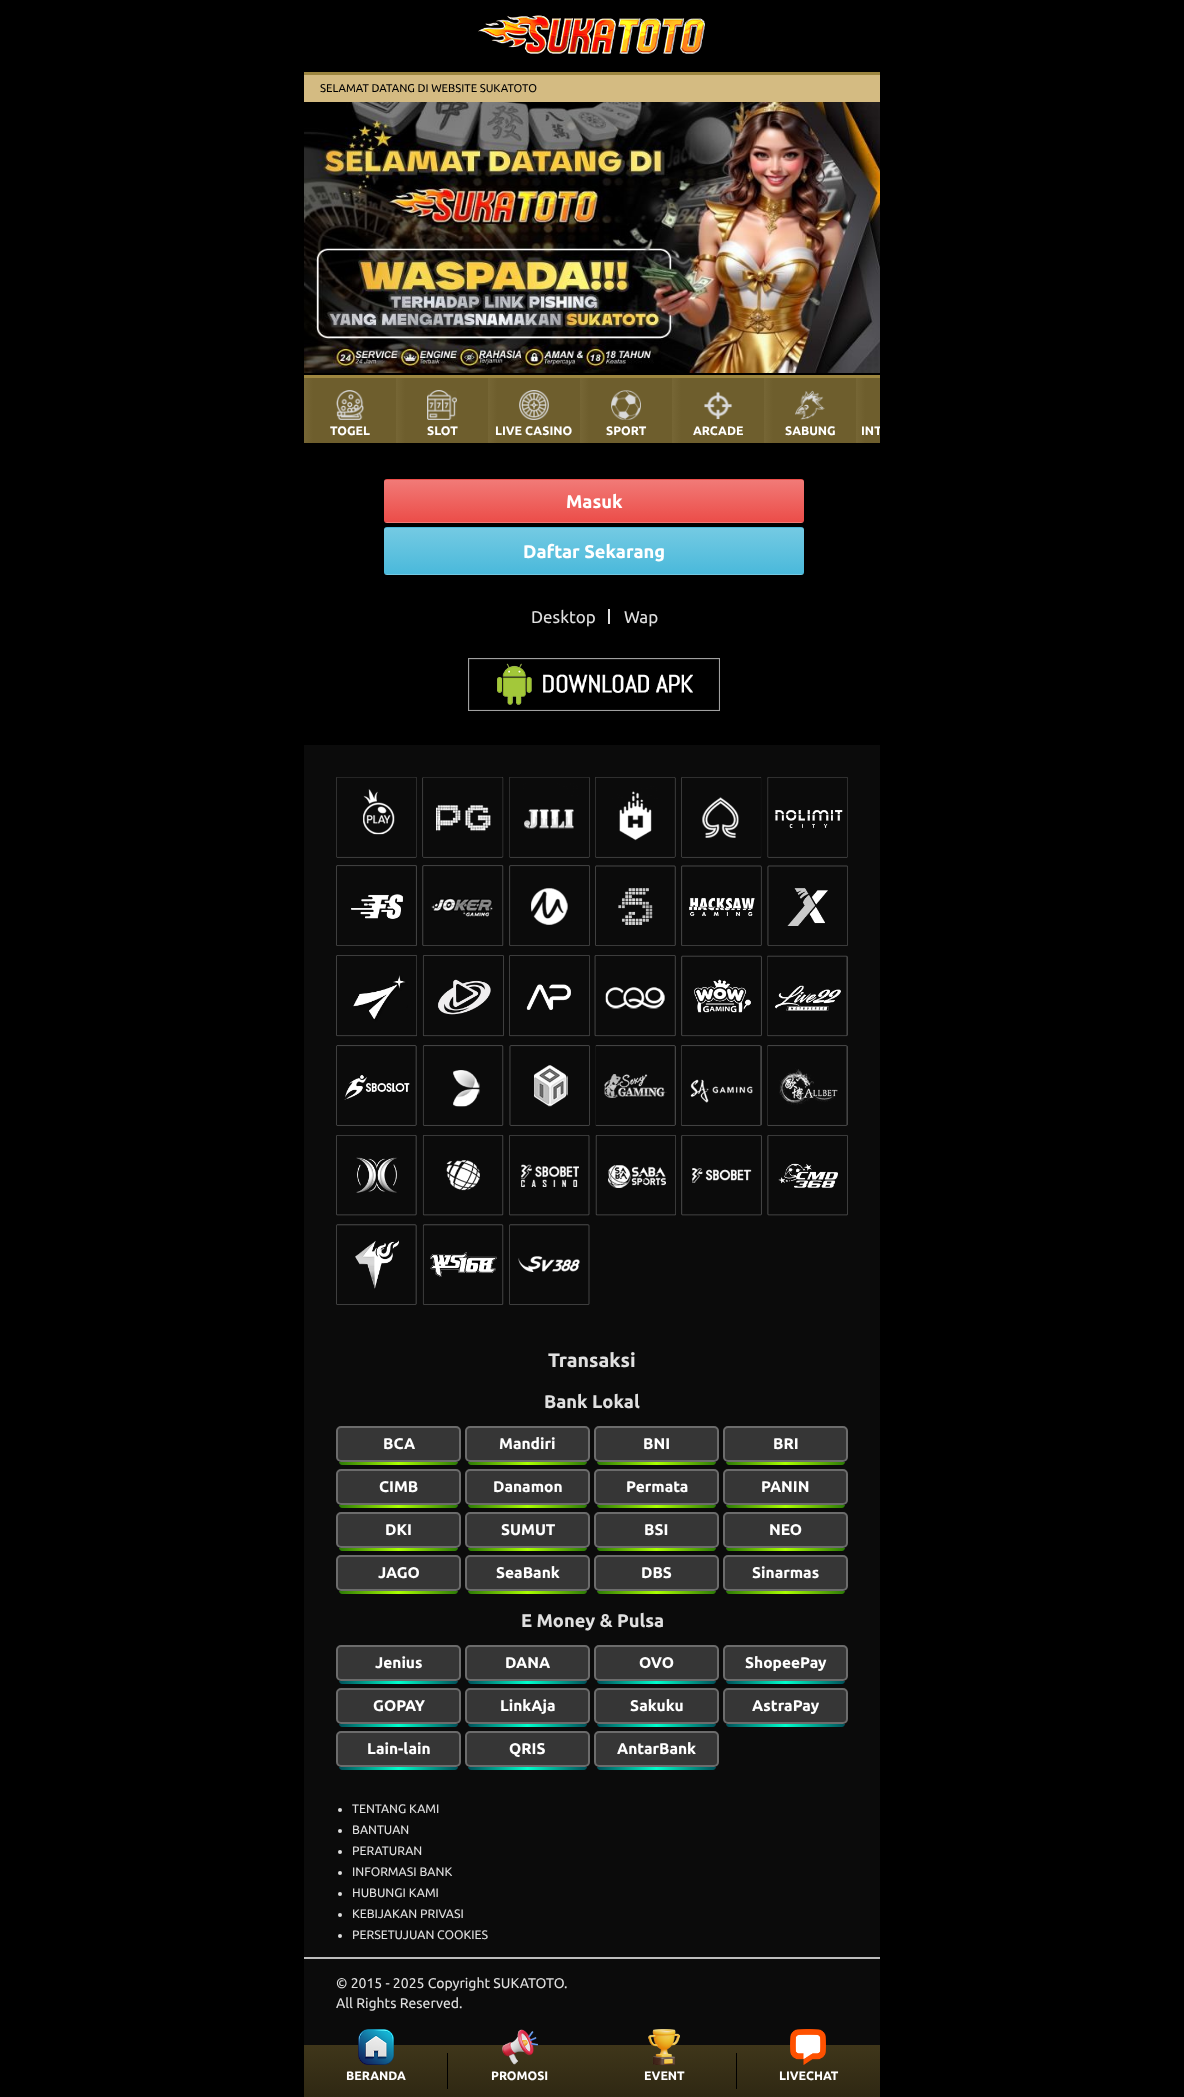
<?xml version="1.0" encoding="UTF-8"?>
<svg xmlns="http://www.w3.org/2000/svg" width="1184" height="2097">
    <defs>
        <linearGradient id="g1" gradientUnits="userSpaceOnUse" x1="304" y1="412" x2="396" y2="412"><stop offset="0" stop-color="#766635"/><stop offset="0.1" stop-color="#6E5E2D"/><stop offset="1" stop-color="#6E5E2D"/></linearGradient>
        <linearGradient id="g2" gradientUnits="userSpaceOnUse" x1="396" y1="412" x2="488" y2="412"><stop offset="0" stop-color="#766635"/><stop offset="0.1" stop-color="#6E5E2D"/><stop offset="1" stop-color="#6E5E2D"/></linearGradient>
        <linearGradient id="g3" gradientUnits="userSpaceOnUse" x1="488" y1="412" x2="580" y2="412"><stop offset="0" stop-color="#766635"/><stop offset="0.1" stop-color="#6E5E2D"/><stop offset="1" stop-color="#6E5E2D"/></linearGradient>
        <linearGradient id="g4" gradientUnits="userSpaceOnUse" x1="580" y1="412" x2="672" y2="412"><stop offset="0" stop-color="#766635"/><stop offset="0.1" stop-color="#6E5E2D"/><stop offset="1" stop-color="#6E5E2D"/></linearGradient>
        <linearGradient id="g5" gradientUnits="userSpaceOnUse" x1="672" y1="412" x2="764" y2="412"><stop offset="0" stop-color="#766635"/><stop offset="0.1" stop-color="#6E5E2D"/><stop offset="1" stop-color="#6E5E2D"/></linearGradient>
        <linearGradient id="g6" gradientUnits="userSpaceOnUse" x1="764" y1="412" x2="856" y2="412"><stop offset="0" stop-color="#766635"/><stop offset="0.1" stop-color="#6E5E2D"/><stop offset="1" stop-color="#6E5E2D"/></linearGradient>
        <linearGradient id="g7" gradientUnits="userSpaceOnUse" x1="856" y1="412" x2="948" y2="412"><stop offset="0" stop-color="#766635"/><stop offset="0.1" stop-color="#6E5E2D"/><stop offset="1" stop-color="#6E5E2D"/></linearGradient>
        <clipPath id="clip1"><rect x="304" y="378" width="576" height="65"/></clipPath>
        <clipPath id="clip2"><rect x="384" y="479" width="420" height="44" rx="3"/></clipPath>
        <linearGradient id="g8" gradientUnits="userSpaceOnUse" x1="594" y1="438" x2="594" y2="480"><stop offset="0" stop-color="#F17A77"/><stop offset="0.6" stop-color="#EE5F5B"/><stop offset="1" stop-color="#EC4D49"/></linearGradient>
        <linearGradient id="g9" gradientUnits="userSpaceOnUse" x1="594" y1="480" x2="594" y2="522"><stop offset="0" stop-color="#F17A77"/><stop offset="0.6" stop-color="#EE5F5B"/><stop offset="1" stop-color="#EC4D49"/></linearGradient>
        <linearGradient id="g10" gradientUnits="userSpaceOnUse" x1="594" y1="522" x2="594" y2="564"><stop offset="0" stop-color="#F17A77"/><stop offset="0.6" stop-color="#EE5F5B"/><stop offset="1" stop-color="#EC4D49"/></linearGradient>
        <clipPath id="clip3"><rect x="384" y="527" width="420" height="48" rx="3"/></clipPath>
        <linearGradient id="g11" gradientUnits="userSpaceOnUse" x1="594" y1="482" x2="594" y2="528"><stop offset="0" stop-color="#74CAE3"/><stop offset="0.6" stop-color="#5BC0DE"/><stop offset="1" stop-color="#4AB9DB"/></linearGradient>
        <linearGradient id="g12" gradientUnits="userSpaceOnUse" x1="594" y1="528" x2="594" y2="574"><stop offset="0" stop-color="#74CAE3"/><stop offset="0.6" stop-color="#5BC0DE"/><stop offset="1" stop-color="#4AB9DB"/></linearGradient>
        <linearGradient id="g13" gradientUnits="userSpaceOnUse" x1="594" y1="574" x2="594" y2="620"><stop offset="0" stop-color="#74CAE3"/><stop offset="0.6" stop-color="#5BC0DE"/><stop offset="1" stop-color="#4AB9DB"/></linearGradient>
        <linearGradient id="g14" gradientUnits="userSpaceOnUse" x1="339" y1="1464" x2="458" y2="1464"><stop offset="0" stop-color="#2C7906"/><stop offset="0.5" stop-color="#A8FF00"/><stop offset="1" stop-color="#2C7906"/></linearGradient>
        <linearGradient id="g15" gradientUnits="userSpaceOnUse" x1="468" y1="1464" x2="587" y2="1464"><stop offset="0" stop-color="#2C7906"/><stop offset="0.5" stop-color="#A8FF00"/><stop offset="1" stop-color="#2C7906"/></linearGradient>
        <linearGradient id="g16" gradientUnits="userSpaceOnUse" x1="597" y1="1464" x2="716" y2="1464"><stop offset="0" stop-color="#2C7906"/><stop offset="0.5" stop-color="#A8FF00"/><stop offset="1" stop-color="#2C7906"/></linearGradient>
        <linearGradient id="g17" gradientUnits="userSpaceOnUse" x1="726" y1="1464" x2="845" y2="1464"><stop offset="0" stop-color="#2C7906"/><stop offset="0.5" stop-color="#A8FF00"/><stop offset="1" stop-color="#2C7906"/></linearGradient>
        <linearGradient id="g18" gradientUnits="userSpaceOnUse" x1="339" y1="1507" x2="458" y2="1507"><stop offset="0" stop-color="#2C7906"/><stop offset="0.5" stop-color="#A8FF00"/><stop offset="1" stop-color="#2C7906"/></linearGradient>
        <linearGradient id="g19" gradientUnits="userSpaceOnUse" x1="468" y1="1507" x2="587" y2="1507"><stop offset="0" stop-color="#2C7906"/><stop offset="0.5" stop-color="#A8FF00"/><stop offset="1" stop-color="#2C7906"/></linearGradient>
        <linearGradient id="g20" gradientUnits="userSpaceOnUse" x1="597" y1="1507" x2="716" y2="1507"><stop offset="0" stop-color="#2C7906"/><stop offset="0.5" stop-color="#A8FF00"/><stop offset="1" stop-color="#2C7906"/></linearGradient>
        <linearGradient id="g21" gradientUnits="userSpaceOnUse" x1="726" y1="1507" x2="845" y2="1507"><stop offset="0" stop-color="#2C7906"/><stop offset="0.5" stop-color="#A8FF00"/><stop offset="1" stop-color="#2C7906"/></linearGradient>
        <linearGradient id="g22" gradientUnits="userSpaceOnUse" x1="339" y1="1550" x2="458" y2="1550"><stop offset="0" stop-color="#2C7906"/><stop offset="0.5" stop-color="#A8FF00"/><stop offset="1" stop-color="#2C7906"/></linearGradient>
        <linearGradient id="g23" gradientUnits="userSpaceOnUse" x1="468" y1="1550" x2="587" y2="1550"><stop offset="0" stop-color="#2C7906"/><stop offset="0.5" stop-color="#A8FF00"/><stop offset="1" stop-color="#2C7906"/></linearGradient>
        <linearGradient id="g24" gradientUnits="userSpaceOnUse" x1="597" y1="1550" x2="716" y2="1550"><stop offset="0" stop-color="#2C7906"/><stop offset="0.5" stop-color="#A8FF00"/><stop offset="1" stop-color="#2C7906"/></linearGradient>
        <linearGradient id="g25" gradientUnits="userSpaceOnUse" x1="726" y1="1550" x2="845" y2="1550"><stop offset="0" stop-color="#2C7906"/><stop offset="0.5" stop-color="#A8FF00"/><stop offset="1" stop-color="#2C7906"/></linearGradient>
        <linearGradient id="g26" gradientUnits="userSpaceOnUse" x1="339" y1="1593" x2="458" y2="1593"><stop offset="0" stop-color="#2C7906"/><stop offset="0.5" stop-color="#A8FF00"/><stop offset="1" stop-color="#2C7906"/></linearGradient>
        <linearGradient id="g27" gradientUnits="userSpaceOnUse" x1="468" y1="1593" x2="587" y2="1593"><stop offset="0" stop-color="#2C7906"/><stop offset="0.5" stop-color="#A8FF00"/><stop offset="1" stop-color="#2C7906"/></linearGradient>
        <linearGradient id="g28" gradientUnits="userSpaceOnUse" x1="597" y1="1593" x2="716" y2="1593"><stop offset="0" stop-color="#2C7906"/><stop offset="0.5" stop-color="#A8FF00"/><stop offset="1" stop-color="#2C7906"/></linearGradient>
        <linearGradient id="g29" gradientUnits="userSpaceOnUse" x1="726" y1="1593" x2="845" y2="1593"><stop offset="0" stop-color="#2C7906"/><stop offset="0.5" stop-color="#A8FF00"/><stop offset="1" stop-color="#2C7906"/></linearGradient>
        <linearGradient id="g30" gradientUnits="userSpaceOnUse" x1="339" y1="1683" x2="458" y2="1683"><stop offset="0" stop-color="#005059"/><stop offset="0.5" stop-color="#00FFCC"/><stop offset="1" stop-color="#005059"/></linearGradient>
        <linearGradient id="g31" gradientUnits="userSpaceOnUse" x1="468" y1="1683" x2="587" y2="1683"><stop offset="0" stop-color="#005059"/><stop offset="0.5" stop-color="#00FFCC"/><stop offset="1" stop-color="#005059"/></linearGradient>
        <linearGradient id="g32" gradientUnits="userSpaceOnUse" x1="597" y1="1683" x2="716" y2="1683"><stop offset="0" stop-color="#005059"/><stop offset="0.5" stop-color="#00FFCC"/><stop offset="1" stop-color="#005059"/></linearGradient>
        <linearGradient id="g33" gradientUnits="userSpaceOnUse" x1="726" y1="1683" x2="845" y2="1683"><stop offset="0" stop-color="#005059"/><stop offset="0.5" stop-color="#00FFCC"/><stop offset="1" stop-color="#005059"/></linearGradient>
        <linearGradient id="g34" gradientUnits="userSpaceOnUse" x1="339" y1="1726" x2="458" y2="1726"><stop offset="0" stop-color="#005059"/><stop offset="0.5" stop-color="#00FFCC"/><stop offset="1" stop-color="#005059"/></linearGradient>
        <linearGradient id="g35" gradientUnits="userSpaceOnUse" x1="468" y1="1726" x2="587" y2="1726"><stop offset="0" stop-color="#005059"/><stop offset="0.5" stop-color="#00FFCC"/><stop offset="1" stop-color="#005059"/></linearGradient>
        <linearGradient id="g36" gradientUnits="userSpaceOnUse" x1="597" y1="1726" x2="716" y2="1726"><stop offset="0" stop-color="#005059"/><stop offset="0.5" stop-color="#00FFCC"/><stop offset="1" stop-color="#005059"/></linearGradient>
        <linearGradient id="g37" gradientUnits="userSpaceOnUse" x1="726" y1="1726" x2="845" y2="1726"><stop offset="0" stop-color="#005059"/><stop offset="0.5" stop-color="#00FFCC"/><stop offset="1" stop-color="#005059"/></linearGradient>
        <linearGradient id="g38" gradientUnits="userSpaceOnUse" x1="339" y1="1769" x2="458" y2="1769"><stop offset="0" stop-color="#005059"/><stop offset="0.5" stop-color="#00FFCC"/><stop offset="1" stop-color="#005059"/></linearGradient>
        <linearGradient id="g39" gradientUnits="userSpaceOnUse" x1="468" y1="1769" x2="587" y2="1769"><stop offset="0" stop-color="#005059"/><stop offset="0.5" stop-color="#00FFCC"/><stop offset="1" stop-color="#005059"/></linearGradient>
        <linearGradient id="g40" gradientUnits="userSpaceOnUse" x1="597" y1="1769" x2="716" y2="1769"><stop offset="0" stop-color="#005059"/><stop offset="0.5" stop-color="#00FFCC"/><stop offset="1" stop-color="#005059"/></linearGradient>
        <linearGradient id="g41" gradientUnits="userSpaceOnUse" x1="592" y1="2097" x2="592" y2="2045"><stop offset="0" stop-color="#2F2813"/><stop offset="1" stop-color="#3F361A"/></linearGradient>
    </defs>
    <rect width="100%" height="100%" fill="#000000"/>
    <image x="478" y="15" width="227" height="39" href="img_01.png"/>
    <rect x="304" y="75" width="576" height="27" fill="#D4BB82"/>
    <rect x="304" y="72" width="576" height="3" fill="#9D8640"/>
    <text x="320" y="92" font-family="Ubuntu" font-size="11.25" fill="#000000">SELAMAT DATANG DI WEBSITE SUKATOTO</text>
    <image x="304" y="102" width="576" height="271" href="img_02.png"/>
    <rect x="304" y="375" width="576" height="3" fill="#9D8640"/>
    <rect x="304" y="378" width="92" height="65" fill="url(#g1)"/>
    <image x="336" y="390" width="28" height="30" href="img_03.png"/>
    <text x="330" y="435" font-family="Ubuntu" font-size="12.25" font-weight="700" fill="#FFFFFF">TOGEL</text>
    <rect x="396" y="378" width="92" height="65" fill="url(#g2)"/>
    <image x="427" y="390" width="30" height="30" href="img_04.png"/>
    <text x="427" y="435" font-family="Ubuntu" font-size="12.25" font-weight="700" fill="#FFFFFF">SLOT</text>
    <rect x="488" y="378" width="92" height="65" fill="url(#g3)"/>
    <image x="519" y="390" width="30" height="30" href="img_05.png"/>
    <text x="495" y="435" font-family="Ubuntu" font-size="12.25" font-weight="700" fill="#FFFFFF">LIVE CASINO</text>
    <rect x="580" y="378" width="92" height="65" fill="url(#g4)"/>
    <image x="611" y="390" width="30" height="30" href="img_06.png"/>
    <text x="606" y="435" font-family="Ubuntu" font-size="12.25" font-weight="700" fill="#FFFFFF">SPORT</text>
    <rect x="672" y="378" width="92" height="65" fill="url(#g5)"/>
    <image x="704" y="391" width="29" height="29" href="img_07.png"/>
    <text x="693" y="435" font-family="Ubuntu" font-size="12.25" font-weight="700" fill="#FFFFFF">ARCADE</text>
    <rect x="764" y="378" width="92" height="65" fill="url(#g6)"/>
    <image x="795" y="390" width="30" height="30" href="img_08.png"/>
    <text x="785" y="435" font-family="Ubuntu" font-size="12.25" font-weight="700" fill="#FFFFFF">SABUNG</text>
    <rect x="856" y="378" width="24" height="65" fill="url(#g7)"/>
    <g clip-path="url(#clip1)">
        <text x="861" y="435" font-family="Ubuntu" font-size="12.25" font-weight="700" fill="#FFFFFF">INT</text>
    </g>
    <g clip-path="url(#clip2)">
        <rect x="384" y="479" width="420" height="1" fill="url(#g8)"/>
        <rect x="384" y="480" width="420" height="42" fill="url(#g9)"/>
        <rect x="384" y="522" width="420" height="1" fill="url(#g10)"/>
    </g>
    <text x="566" y="508" font-family="Ubuntu" font-size="18.25" font-weight="700" fill="#FFFFFF">Masuk</text>
    <g clip-path="url(#clip3)">
        <rect x="384" y="527" width="420" height="1" fill="url(#g11)"/>
        <rect x="384" y="528" width="420" height="46" fill="url(#g12)"/>
        <rect x="384" y="574" width="420" height="1" fill="url(#g13)"/>
    </g>
    <text x="523" y="558" font-family="Ubuntu" font-size="18.25" font-weight="700" fill="#FFFFFF">Daftar Sekarang</text>
    <text x="531" y="623" font-family="Ubuntu" font-size="17" fill="#E0E0E0">Desktop</text>
    <rect x="608" y="609" width="2" height="15" fill="#E0E0E0"/>
    <text x="624" y="623" font-family="Ubuntu" font-size="17" fill="#E0E0E0">Wap</text>
    <image x="468" y="658" width="252" height="53" href="img_09.png"/>
    <rect x="304" y="745" width="576" height="1212" fill="#0B0B0B"/>
    <image x="336" y="777" width="512" height="528" href="img_10.png"/>
    <text x="548" y="1367" font-family="Ubuntu" font-size="19.5" font-weight="700" fill="#E0E0E0">Transaksi</text>
    <text x="544" y="1408" font-family="Ubuntu" font-size="18.25" font-weight="700" fill="#E0E0E0">Bank Lokal</text>
    <rect x="337" y="1427" width="123" height="34" rx="4" fill="#363636" stroke="#6C6C6C" stroke-width="2"/>
    <text x="383" y="1449" font-family="Ubuntu" font-size="15.5" font-weight="700" fill="#FFFFFF">BCA</text>
    <path d="M 339 1462 H 458 C 458 1463.5 456.5 1465 455 1465 H 342 C 340.5 1465 339 1463.5 339 1462 Z" fill="url(#g14)"/>
    <rect x="466" y="1427" width="123" height="34" rx="4" fill="#363636" stroke="#6C6C6C" stroke-width="2"/>
    <text x="499" y="1449" font-family="Ubuntu" font-size="15.5" font-weight="700" fill="#FFFFFF">Mandiri</text>
    <path d="M 468 1462 H 587 C 587 1463.5 585.5 1465 584 1465 H 471 C 469.5 1465 468 1463.5 468 1462 Z" fill="url(#g15)"/>
    <rect x="595" y="1427" width="123" height="34" rx="4" fill="#363636" stroke="#6C6C6C" stroke-width="2"/>
    <text x="643" y="1449" font-family="Ubuntu" font-size="15.5" font-weight="700" fill="#FFFFFF">BNI</text>
    <path d="M 597 1462 H 716 C 716 1463.5 714.5 1465 713 1465 H 600 C 598.5 1465 597 1463.5 597 1462 Z" fill="url(#g16)"/>
    <rect x="724" y="1427" width="123" height="34" rx="4" fill="#363636" stroke="#6C6C6C" stroke-width="2"/>
    <text x="773" y="1449" font-family="Ubuntu" font-size="15.5" font-weight="700" fill="#FFFFFF">BRI</text>
    <path d="M 726 1462 H 845 C 845 1463.5 843.5 1465 842 1465 H 729 C 727.5 1465 726 1463.5 726 1462 Z" fill="url(#g17)"/>
    <rect x="337" y="1470" width="123" height="34" rx="4" fill="#363636" stroke="#6C6C6C" stroke-width="2"/>
    <text x="379" y="1492" font-family="Ubuntu" font-size="15.5" font-weight="700" fill="#FFFFFF">CIMB</text>
    <path d="M 339 1505 H 458 C 458 1506.5 456.5 1508 455 1508 H 342 C 340.5 1508 339 1506.5 339 1505 Z" fill="url(#g18)"/>
    <rect x="466" y="1470" width="123" height="34" rx="4" fill="#363636" stroke="#6C6C6C" stroke-width="2"/>
    <text x="493" y="1492" font-family="Ubuntu" font-size="15.5" font-weight="700" fill="#FFFFFF">Danamon</text>
    <path d="M 468 1505 H 587 C 587 1506.5 585.5 1508 584 1508 H 471 C 469.5 1508 468 1506.5 468 1505 Z" fill="url(#g19)"/>
    <rect x="595" y="1470" width="123" height="34" rx="4" fill="#363636" stroke="#6C6C6C" stroke-width="2"/>
    <text x="626" y="1492" font-family="Ubuntu" font-size="15.5" font-weight="700" fill="#FFFFFF">Permata</text>
    <path d="M 597 1505 H 716 C 716 1506.5 714.5 1508 713 1508 H 600 C 598.5 1508 597 1506.5 597 1505 Z" fill="url(#g20)"/>
    <rect x="724" y="1470" width="123" height="34" rx="4" fill="#363636" stroke="#6C6C6C" stroke-width="2"/>
    <text x="761" y="1492" font-family="Ubuntu" font-size="15.5" font-weight="700" fill="#FFFFFF">PANIN</text>
    <path d="M 726 1505 H 845 C 845 1506.5 843.5 1508 842 1508 H 729 C 727.5 1508 726 1506.5 726 1505 Z" fill="url(#g21)"/>
    <rect x="337" y="1513" width="123" height="34" rx="4" fill="#363636" stroke="#6C6C6C" stroke-width="2"/>
    <text x="385" y="1535" font-family="Ubuntu" font-size="15.5" font-weight="700" fill="#FFFFFF">DKI</text>
    <path d="M 339 1548 H 458 C 458 1549.5 456.5 1551 455 1551 H 342 C 340.5 1551 339 1549.5 339 1548 Z" fill="url(#g22)"/>
    <rect x="466" y="1513" width="123" height="34" rx="4" fill="#363636" stroke="#6C6C6C" stroke-width="2"/>
    <text x="501" y="1535" font-family="Ubuntu" font-size="15.5" font-weight="700" fill="#FFFFFF">SUMUT</text>
    <path d="M 468 1548 H 587 C 587 1549.5 585.5 1551 584 1551 H 471 C 469.5 1551 468 1549.5 468 1548 Z" fill="url(#g23)"/>
    <rect x="595" y="1513" width="123" height="34" rx="4" fill="#363636" stroke="#6C6C6C" stroke-width="2"/>
    <text x="644" y="1535" font-family="Ubuntu" font-size="15.5" font-weight="700" fill="#FFFFFF">BSI</text>
    <path d="M 597 1548 H 716 C 716 1549.5 714.5 1551 713 1551 H 600 C 598.5 1551 597 1549.5 597 1548 Z" fill="url(#g24)"/>
    <rect x="724" y="1513" width="123" height="34" rx="4" fill="#363636" stroke="#6C6C6C" stroke-width="2"/>
    <text x="769" y="1535" font-family="Ubuntu" font-size="15.5" font-weight="700" fill="#FFFFFF">NEO</text>
    <path d="M 726 1548 H 845 C 845 1549.5 843.5 1551 842 1551 H 729 C 727.5 1551 726 1549.5 726 1548 Z" fill="url(#g25)"/>
    <rect x="337" y="1556" width="123" height="34" rx="4" fill="#363636" stroke="#6C6C6C" stroke-width="2"/>
    <text x="378" y="1578" font-family="Ubuntu" font-size="15.5" font-weight="700" fill="#FFFFFF">JAGO</text>
    <path d="M 339 1591 H 458 C 458 1592.5 456.5 1594 455 1594 H 342 C 340.5 1594 339 1592.5 339 1591 Z" fill="url(#g26)"/>
    <rect x="466" y="1556" width="123" height="34" rx="4" fill="#363636" stroke="#6C6C6C" stroke-width="2"/>
    <text x="496" y="1578" font-family="Ubuntu" font-size="15.5" font-weight="700" fill="#FFFFFF">SeaBank</text>
    <path d="M 468 1591 H 587 C 587 1592.5 585.5 1594 584 1594 H 471 C 469.5 1594 468 1592.5 468 1591 Z" fill="url(#g27)"/>
    <rect x="595" y="1556" width="123" height="34" rx="4" fill="#363636" stroke="#6C6C6C" stroke-width="2"/>
    <text x="641" y="1578" font-family="Ubuntu" font-size="15.5" font-weight="700" fill="#FFFFFF">DBS</text>
    <path d="M 597 1591 H 716 C 716 1592.5 714.5 1594 713 1594 H 600 C 598.5 1594 597 1592.5 597 1591 Z" fill="url(#g28)"/>
    <rect x="724" y="1556" width="123" height="34" rx="4" fill="#363636" stroke="#6C6C6C" stroke-width="2"/>
    <text x="752" y="1578" font-family="Ubuntu" font-size="15.5" font-weight="700" fill="#FFFFFF">Sinarmas</text>
    <path d="M 726 1591 H 845 C 845 1592.5 843.5 1594 842 1594 H 729 C 727.5 1594 726 1592.5 726 1591 Z" fill="url(#g29)"/>
    <text x="521" y="1627" font-family="Ubuntu" font-size="18.25" font-weight="700" fill="#E0E0E0">E Money &amp; Pulsa</text>
    <rect x="337" y="1646" width="123" height="34" rx="4" fill="#363636" stroke="#6C6C6C" stroke-width="2"/>
    <text x="375" y="1668" font-family="Ubuntu" font-size="15.5" font-weight="700" fill="#FFFFFF">Jenius</text>
    <path d="M 339 1681 H 458 C 458 1682.5 456.5 1684 455 1684 H 342 C 340.5 1684 339 1682.5 339 1681 Z" fill="url(#g30)"/>
    <rect x="466" y="1646" width="123" height="34" rx="4" fill="#363636" stroke="#6C6C6C" stroke-width="2"/>
    <text x="505" y="1668" font-family="Ubuntu" font-size="15.5" font-weight="700" fill="#FFFFFF">DANA</text>
    <path d="M 468 1681 H 587 C 587 1682.5 585.5 1684 584 1684 H 471 C 469.5 1684 468 1682.5 468 1681 Z" fill="url(#g31)"/>
    <rect x="595" y="1646" width="123" height="34" rx="4" fill="#363636" stroke="#6C6C6C" stroke-width="2"/>
    <text x="639" y="1668" font-family="Ubuntu" font-size="15.5" font-weight="700" fill="#FFFFFF">OVO</text>
    <path d="M 597 1681 H 716 C 716 1682.5 714.5 1684 713 1684 H 600 C 598.5 1684 597 1682.5 597 1681 Z" fill="url(#g32)"/>
    <rect x="724" y="1646" width="123" height="34" rx="4" fill="#363636" stroke="#6C6C6C" stroke-width="2"/>
    <text x="745" y="1668" font-family="Ubuntu" font-size="15.5" font-weight="700" fill="#FFFFFF">ShopeePay</text>
    <path d="M 726 1681 H 845 C 845 1682.5 843.5 1684 842 1684 H 729 C 727.5 1684 726 1682.5 726 1681 Z" fill="url(#g33)"/>
    <rect x="337" y="1689" width="123" height="34" rx="4" fill="#363636" stroke="#6C6C6C" stroke-width="2"/>
    <text x="373" y="1711" font-family="Ubuntu" font-size="15.5" font-weight="700" fill="#FFFFFF">GOPAY</text>
    <path d="M 339 1724 H 458 C 458 1725.5 456.5 1727 455 1727 H 342 C 340.5 1727 339 1725.5 339 1724 Z" fill="url(#g34)"/>
    <rect x="466" y="1689" width="123" height="34" rx="4" fill="#363636" stroke="#6C6C6C" stroke-width="2"/>
    <text x="500" y="1711" font-family="Ubuntu" font-size="15.5" font-weight="700" fill="#FFFFFF">LinkAja</text>
    <path d="M 468 1724 H 587 C 587 1725.5 585.5 1727 584 1727 H 471 C 469.5 1727 468 1725.5 468 1724 Z" fill="url(#g35)"/>
    <rect x="595" y="1689" width="123" height="34" rx="4" fill="#363636" stroke="#6C6C6C" stroke-width="2"/>
    <text x="630" y="1711" font-family="Ubuntu" font-size="15.5" font-weight="700" fill="#FFFFFF">Sakuku</text>
    <path d="M 597 1724 H 716 C 716 1725.5 714.5 1727 713 1727 H 600 C 598.5 1727 597 1725.5 597 1724 Z" fill="url(#g36)"/>
    <rect x="724" y="1689" width="123" height="34" rx="4" fill="#363636" stroke="#6C6C6C" stroke-width="2"/>
    <text x="752" y="1711" font-family="Ubuntu" font-size="15.5" font-weight="700" fill="#FFFFFF">AstraPay</text>
    <path d="M 726 1724 H 845 C 845 1725.5 843.5 1727 842 1727 H 729 C 727.5 1727 726 1725.5 726 1724 Z" fill="url(#g37)"/>
    <rect x="337" y="1732" width="123" height="34" rx="4" fill="#363636" stroke="#6C6C6C" stroke-width="2"/>
    <text x="367" y="1754" font-family="Ubuntu" font-size="15.5" font-weight="700" fill="#FFFFFF">Lain-lain</text>
    <path d="M 339 1767 H 458 C 458 1768.5 456.5 1770 455 1770 H 342 C 340.5 1770 339 1768.5 339 1767 Z" fill="url(#g38)"/>
    <rect x="466" y="1732" width="123" height="34" rx="4" fill="#363636" stroke="#6C6C6C" stroke-width="2"/>
    <text x="509" y="1754" font-family="Ubuntu" font-size="15.5" font-weight="700" fill="#FFFFFF">QRIS</text>
    <path d="M 468 1767 H 587 C 587 1768.5 585.5 1770 584 1770 H 471 C 469.5 1770 468 1768.5 468 1767 Z" fill="url(#g39)"/>
    <rect x="595" y="1732" width="123" height="34" rx="4" fill="#363636" stroke="#6C6C6C" stroke-width="2"/>
    <text x="617" y="1754" font-family="Ubuntu" font-size="15.5" font-weight="700" fill="#FFFFFF">AntarBank</text>
    <path d="M 597 1767 H 716 C 716 1768.5 714.5 1770 713 1770 H 600 C 598.5 1770 597 1768.5 597 1767 Z" fill="url(#g40)"/>
    <circle cx="340" cy="1810" r="2" fill="#E0E0E0"/>
    <text x="352" y="1813" font-family="Ubuntu" font-size="12.25" fill="#E0E0E0">TENTANG KAMI</text>
    <circle cx="340" cy="1831" r="2" fill="#E0E0E0"/>
    <text x="352" y="1834" font-family="Ubuntu" font-size="12.25" fill="#E0E0E0">BANTUAN</text>
    <circle cx="340" cy="1852" r="2" fill="#E0E0E0"/>
    <text x="352" y="1855" font-family="Ubuntu" font-size="12.25" fill="#E0E0E0">PERATURAN</text>
    <circle cx="340" cy="1873" r="2" fill="#E0E0E0"/>
    <text x="352" y="1876" font-family="Ubuntu" font-size="12.25" fill="#E0E0E0">INFORMASI BANK</text>
    <circle cx="340" cy="1894" r="2" fill="#E0E0E0"/>
    <text x="352" y="1897" font-family="Ubuntu" font-size="12.25" fill="#E0E0E0">HUBUNGI KAMI</text>
    <circle cx="340" cy="1915" r="2" fill="#E0E0E0"/>
    <text x="352" y="1918" font-family="Ubuntu" font-size="12.25" fill="#E0E0E0">KEBIJAKAN PRIVASI</text>
    <circle cx="340" cy="1936" r="2" fill="#E0E0E0"/>
    <text x="352" y="1939" font-family="Ubuntu" font-size="12.25" fill="#E0E0E0">PERSETUJUAN COOKIES</text>
    <rect x="304" y="1959" width="576" height="86" fill="#0B0B0B"/>
    <rect x="304" y="1957" width="576" height="2" fill="#BDBDBD"/>
    <text font-family="Ubuntu" font-size="14" fill="#E0E0E0">
        <tspan x="336" y="1988">© 2015 - 2025 Copyright SUKATOTO.</tspan>
        <tspan x="336" y="2008">All Rights Reserved.</tspan>
    </text>
    <rect x="304" y="2045" width="576" height="52" fill="url(#g41)"/>
    <image x="358" y="2029" width="36" height="36" href="img_11.png"/>
    <text x="346" y="2080" font-family="Ubuntu" font-size="12.25" font-weight="700" fill="#FFFFFF">BERANDA</text>
    <rect x="447" y="2053" width="1" height="36" fill="#000000"/>
    <image x="502" y="2029" width="36" height="36" href="img_12.png"/>
    <text x="491" y="2080" font-family="Ubuntu" font-size="12.25" font-weight="700" fill="#FFFFFF">PROMOSI</text>
    <image x="648" y="2029" width="32" height="36" href="img_13.png"/>
    <text x="644" y="2080" font-family="Ubuntu" font-size="12.25" font-weight="700" fill="#FFFFFF">EVENT</text>
    <rect x="736" y="2053" width="1" height="36" fill="#000000"/>
    <image x="790" y="2029" width="36" height="36" href="img_14.png"/>
    <text x="779" y="2080" font-family="Ubuntu" font-size="12.25" font-weight="700" fill="#FFFFFF">LIVECHAT</text>
</svg>
